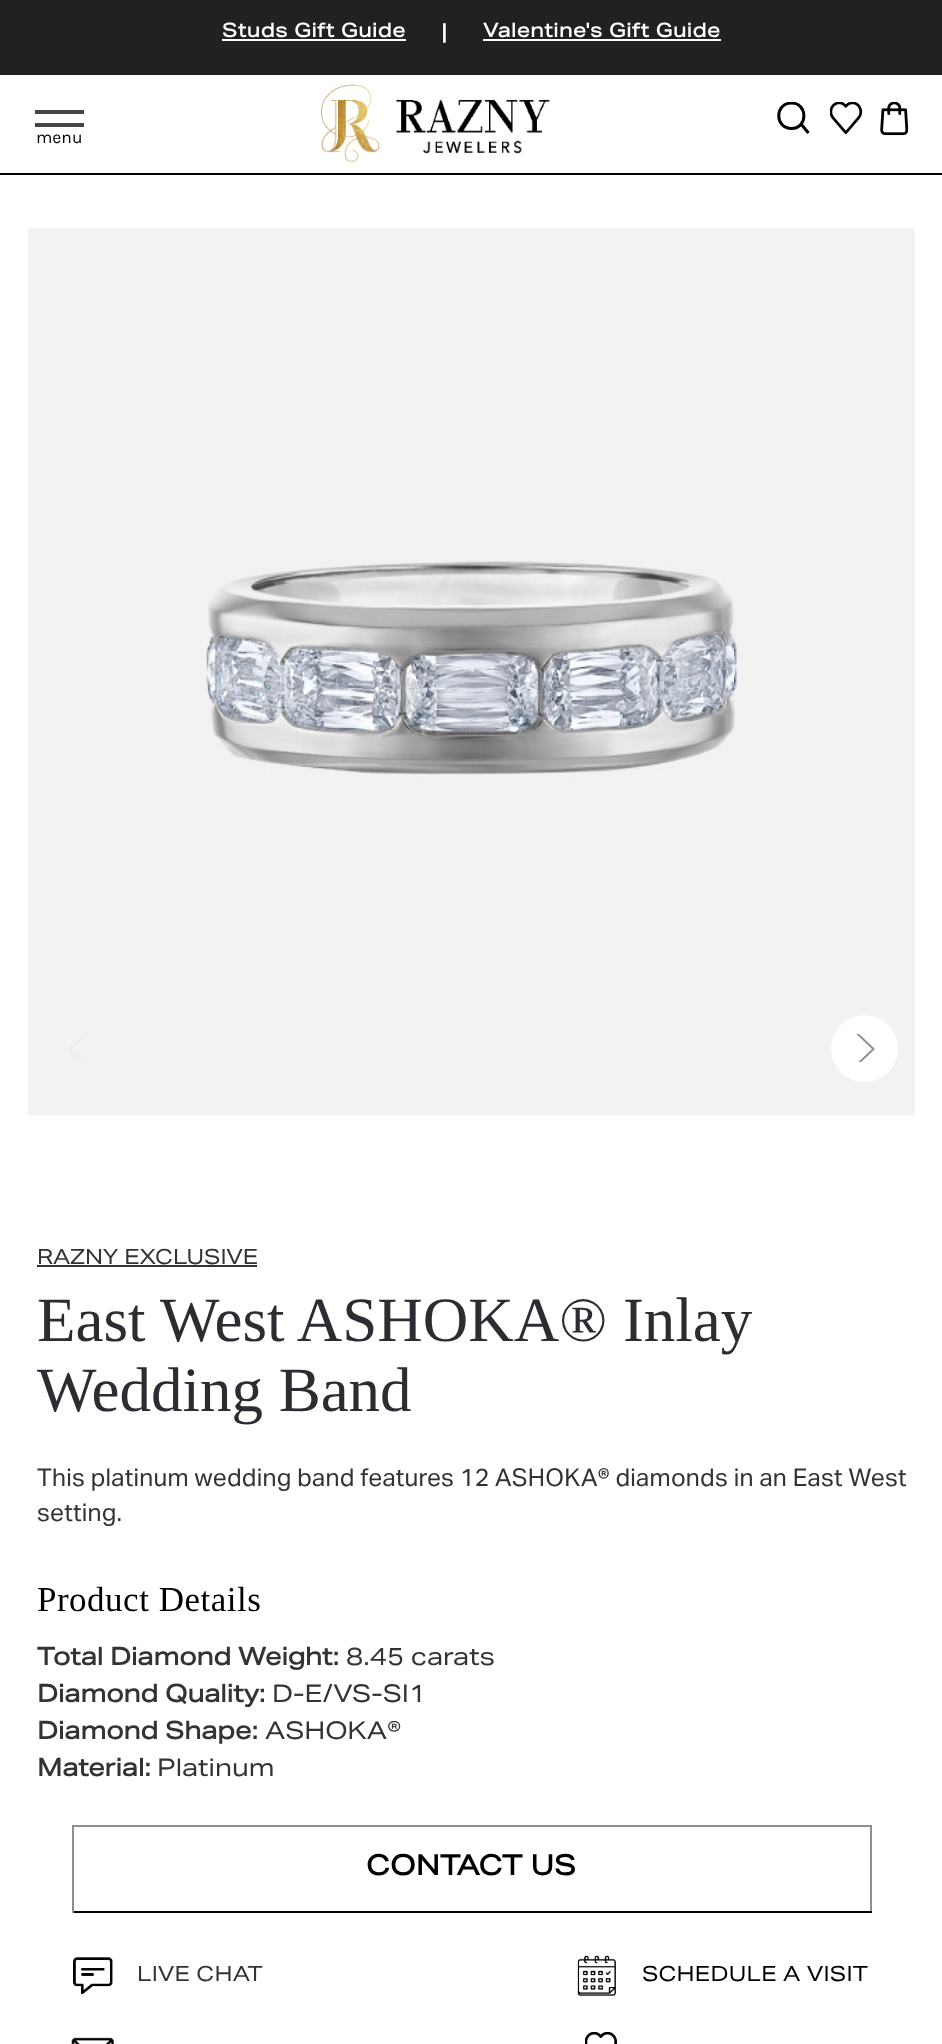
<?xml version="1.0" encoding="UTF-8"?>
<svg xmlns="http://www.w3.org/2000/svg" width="942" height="2044">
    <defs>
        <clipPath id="clip1"><rect x="777" y="102" width="35" height="35"/></clipPath>
        <clipPath id="clip2"><rect x="68" y="1034" width="23" height="28"/></clipPath>
        <clipPath id="clip3"><rect x="852" y="1034" width="23" height="28"/></clipPath>
    </defs>
    <rect width="100%" height="100%" fill="#FFFFFF"/>
    <rect x="0" y="0" width="942" height="75" fill="#212121"/>
    <text x="222" y="37" font-family="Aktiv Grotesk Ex" font-size="19.25" font-weight="700" letter-spacing="0.7" fill="#FFFFFF">Studs Gift Guide</text>
    <rect x="222" y="39" width="184" height="2" fill="#FFFFFF"/>
    <text x="441" y="40" font-family="Aktiv Grotesk Ex" font-size="22" font-weight="700" letter-spacing="0.7" fill="#FFFFFF">|</text>
    <text x="483" y="37" font-family="Aktiv Grotesk Ex" font-size="19.25" font-weight="700" letter-spacing="0.7" fill="#FFFFFF">Valentine's Gift Guide</text>
    <rect x="483" y="39" width="238" height="2" fill="#FFFFFF"/>
    <rect x="0" y="173" width="942" height="2" fill="#000000"/>
    <image x="321" y="84" width="229" height="79" href="img_01.png"/>
    <g clip-path="url(#clip1)">
        <path d="M 791.5 128.5 C 808 128.5 808 103 791.5 103 C 774.5 103 774.5 128.5 791.5 128.5 Z M 801 124 L 808.5 133" fill="none" stroke="#000000" stroke-width="3"/>
    </g>
    <image x="830" y="102" width="33" height="33" href="img_02.png"/>
    <image x="880" y="102" width="28" height="34" href="img_03.png"/>
    <rect x="35" y="123" width="49" height="4" fill="#444444"/>
    <rect x="35" y="110" width="49" height="4" fill="#444444"/>
    <text x="36" y="143" font-family="Karla" font-size="17.5" fill="#000000">menu</text>
    <image x="28" y="228" width="887" height="887" href="img_04.png"/>
    <g clip-path="url(#clip2)">
        <path d="M 89.5 1030 L 69.5 1049 L 89.5 1068" fill="none" stroke="#ECECEC" stroke-width="1.9" stroke-linecap="round" stroke-linejoin="round"/>
    </g>
    <circle cx="864.5" cy="1048.5" r="33.5" fill="#FFFFFF"/>
    <g clip-path="url(#clip3)">
        <path d="M 853.5 1030 L 873.5 1049 L 853.5 1068" fill="none" stroke="#8F8F8F" stroke-width="1.9" stroke-linecap="round" stroke-linejoin="round"/>
    </g>
    <text x="37" y="1264" font-family="Aktiv Grotesk Ex" font-size="21" fill="#333333">RAZNY EXCLUSIVE</text>
    <rect x="37" y="1265" width="220" height="2" fill="#333333"/>
    <text font-family="Liberation Serif" font-size="63" fill="#2B2D33">
        <tspan x="37" y="1341">East West ASHOKA® Inlay</tspan>
        <tspan x="37" y="1411">Wedding Band</tspan>
    </text>
    <text font-family="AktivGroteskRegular" font-size="24.5" letter-spacing="0.25" fill="#333333">
        <tspan x="37" y="1486">This platinum wedding band features 12 ASHOKA® diamonds in an East West</tspan>
        <tspan x="37" y="1521">setting.</tspan>
    </text>
    <text x="37" y="1611" font-family="Liberation Serif" font-size="35" letter-spacing="0.5" fill="#000000">Product Details</text>
    <text x="37" y="1665" font-family="Aktiv Grotesk Ex" font-size="24.5" font-weight="700" fill="#333333">Total Diamond Weight:</text>
    <text x="346" y="1665" font-family="Aktiv Grotesk Ex" font-size="24.5" fill="#333333">8.45 carats</text>
    <text x="37" y="1702" font-family="Aktiv Grotesk Ex" font-size="24.5" font-weight="700" fill="#333333">Diamond Quality:</text>
    <text x="272" y="1702" font-family="Aktiv Grotesk Ex" font-size="24.5" fill="#333333">D-E/VS-SI1</text>
    <text x="37" y="1739" font-family="Aktiv Grotesk Ex" font-size="24.5" font-weight="700" fill="#333333">Diamond Shape:</text>
    <text x="265" y="1739" font-family="Aktiv Grotesk Ex" font-size="24.5" fill="#333333">ASHOKA®</text>
    <text x="37" y="1776" font-family="Aktiv Grotesk Ex" font-size="24.5" font-weight="700" fill="#333333">Material:</text>
    <text x="157" y="1776" font-family="Aktiv Grotesk Ex" font-size="24.5" fill="#333333">Platinum</text>
    <rect x="72" y="1825" width="800" height="2" fill="#8F8F8F"/>
    <rect x="870" y="1825" width="2" height="88" fill="#8F8F8F"/>
    <rect x="72" y="1911" width="800" height="2" fill="#000000"/>
    <rect x="72" y="1825" width="2" height="88" fill="#8F8F8F"/>
    <text x="366" y="1875" font-family="Aktiv Grotesk Ex" font-size="28" font-weight="700" letter-spacing="0.25" fill="#000000">CONTACT US</text>
    <image x="73" y="1957" width="40" height="37" href="img_05.png"/>
    <text x="137" y="1981" font-family="Aktiv Grotesk Ex" font-size="21" letter-spacing="0.25" fill="#333333">LIVE CHAT</text>
    <image x="577" y="1955" width="39" height="41" href="img_06.png"/>
    <text x="642" y="1981" font-family="Aktiv Grotesk Ex" font-size="21" letter-spacing="0.25" fill="#000000">SCHEDULE A VISIT</text>
    <image x="71" y="2037" width="43" height="7" href="img_07.png"/>
    <image x="585" y="2032" width="33" height="12" href="img_08.png"/>
</svg>
